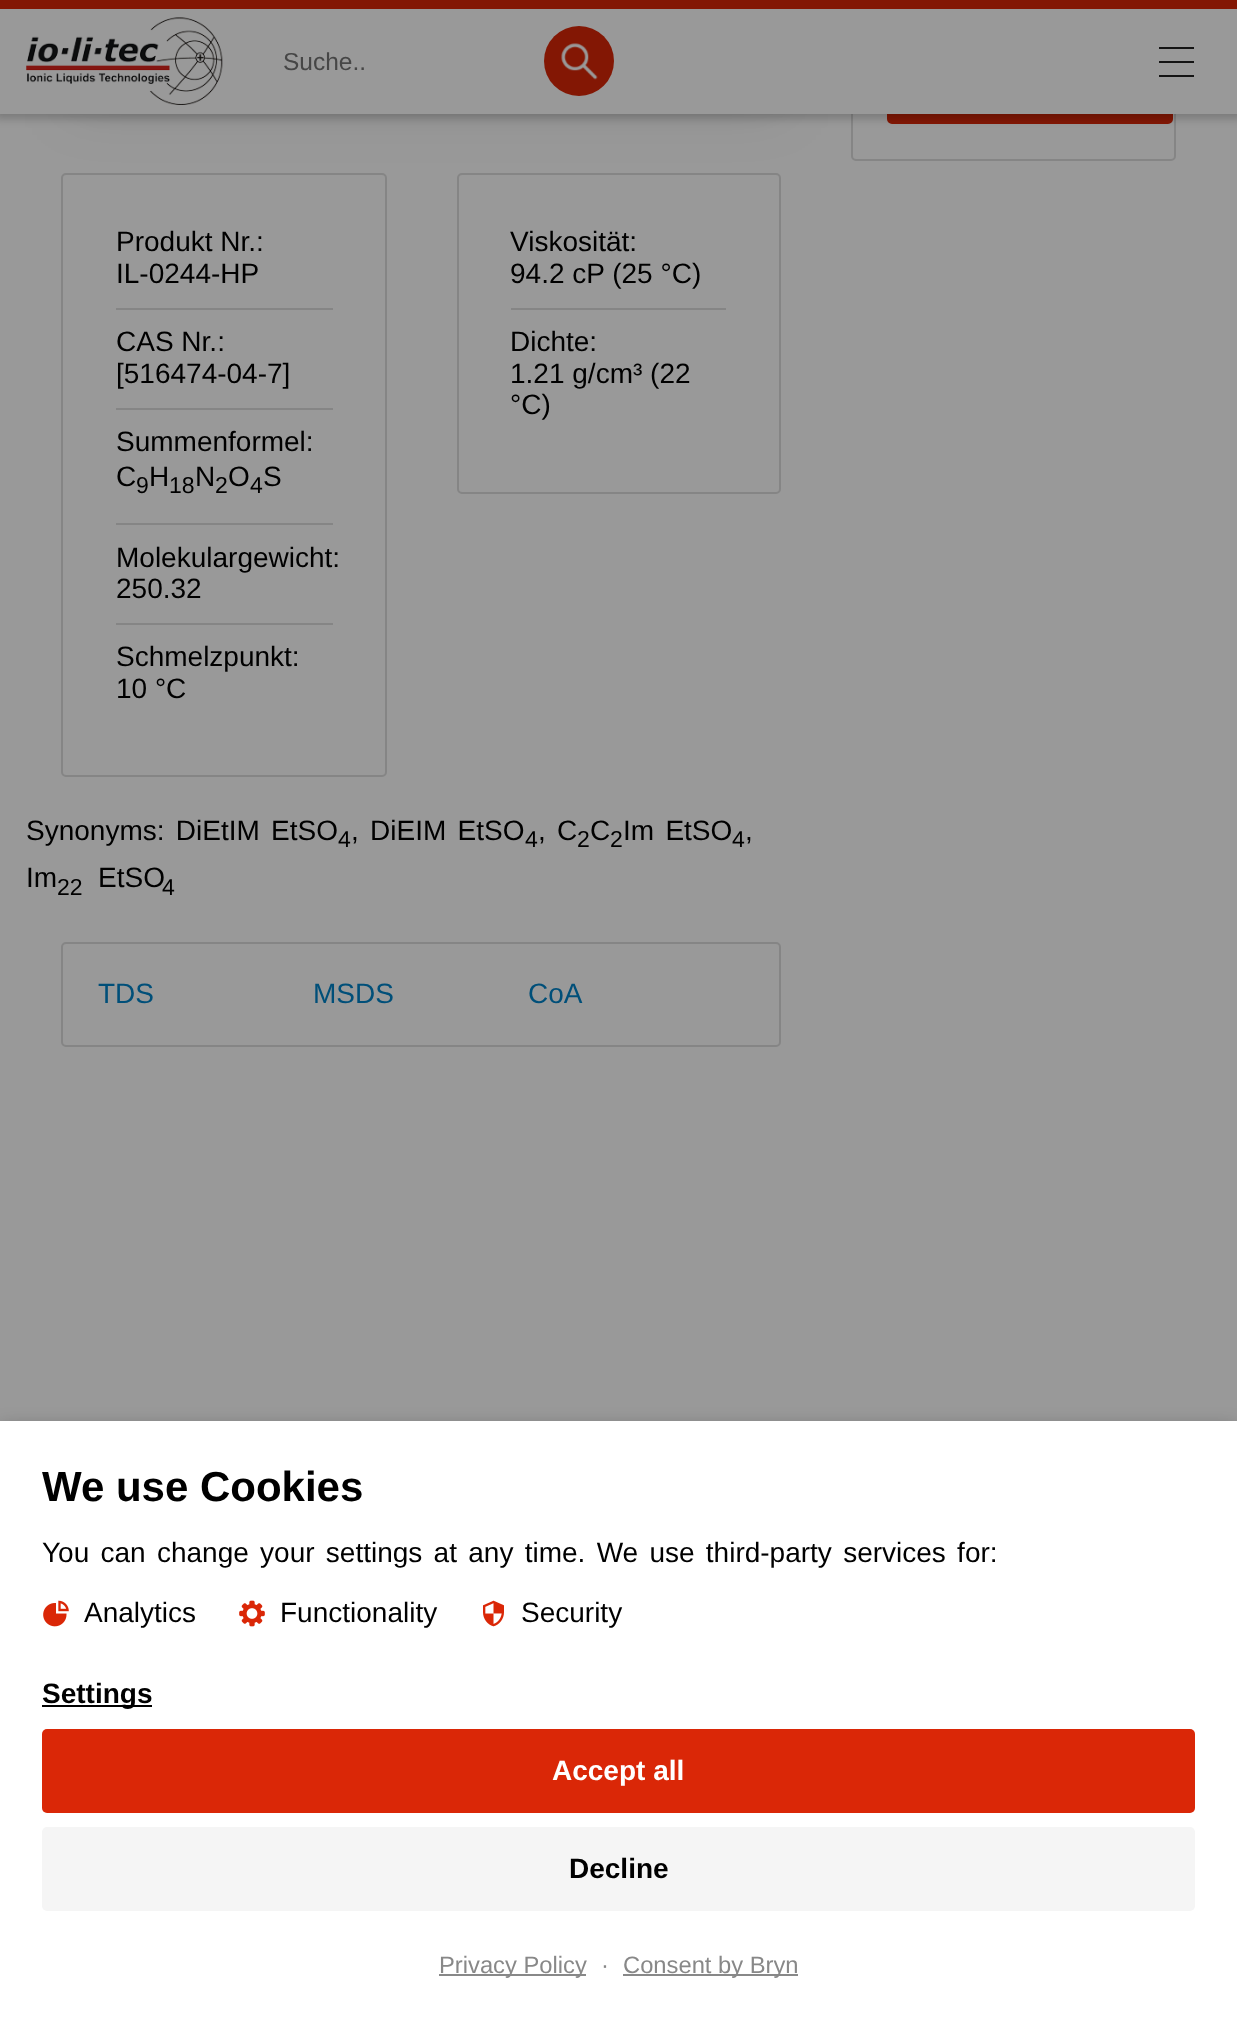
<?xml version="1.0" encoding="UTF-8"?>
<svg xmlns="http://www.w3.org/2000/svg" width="1237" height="2019">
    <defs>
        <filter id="blur1" x="-50%" y="-200%" width="200%" height="500%"><feGaussianBlur stdDeviation="28"/></filter>
        <filter id="blur2" x="-50%" y="-200%" width="200%" height="500%"><feGaussianBlur stdDeviation="4.5"/></filter>
        <filter id="blur3" x="-50%" y="-200%" width="200%" height="500%"><feGaussianBlur stdDeviation="9"/></filter>
    </defs>
    <rect width="100%" height="100%" fill="#999999"/>
    <rect x="67" y="-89" width="719" height="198" rx="5" fill="#000000" fill-opacity="0.1" filter="url(#blur1)"/>
    <rect x="852" y="-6" width="323" height="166" rx="4" fill="none" stroke="#858585" stroke-width="2"/>
    <rect x="889" y="76" width="282" height="46" rx="3" fill="#831704" stroke="#831704" stroke-width="4"/>
    <rect x="-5" y="4" width="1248" height="115" fill="#000000" fill-opacity="0.2" filter="url(#blur2)"/>
    <rect x="0" y="0" width="1237" height="9" fill="#831704"/>
    <rect x="0" y="9" width="1237" height="105" fill="#999999"/>
    <image x="26" y="17" width="197" height="88" href="img_01.png"/>
    <text x="283" y="70" font-family="Liberation Sans" font-size="24.5" fill="#464646">Suche..</text>
    <circle cx="579" cy="61" r="35" fill="#831704"/>
    <image x="561" y="43" width="37" height="37" href="img_02.png"/>
    <rect x="1159" y="61" width="35" height="2" fill="#141414"/>
    <rect x="1159" y="47" width="35" height="2" fill="#141414"/>
    <rect x="1159" y="75" width="35" height="2" fill="#141414"/>
    <rect x="62" y="174" width="324" height="602" rx="4" fill="none" stroke="#858585" stroke-width="2"/>
    <rect x="116" y="308" width="217" height="2" fill="#858585"/>
    <text font-family="Liberation Sans" font-size="28" fill="#000000">
        <tspan x="116" y="251">Produkt Nr.:</tspan>
        <tspan x="116" y="283">IL-0244-HP</tspan>
    </text>
    <rect x="116" y="408" width="217" height="2" fill="#858585"/>
    <text font-family="Liberation Sans" font-size="28" fill="#000000">
        <tspan x="116" y="351">CAS Nr.:</tspan>
        <tspan x="116" y="383">[516474-04-7]</tspan>
    </text>
    <rect x="116" y="523" width="217" height="2" fill="#858585"/>
    <text font-family="Liberation Sans" font-size="28" fill="#000000">
        <tspan x="116" y="451">Summenformel:</tspan>
        <tspan x="116" y="486">C</tspan>
    </text>
    <text x="136" y="493" font-family="Liberation Sans" font-size="23" fill="#000000">9</text>
    <text x="149" y="486" font-family="Liberation Sans" font-size="28" fill="#000000">H</text>
    <text x="169" y="493" font-family="Liberation Sans" font-size="23" fill="#000000">18</text>
    <text x="195" y="486" font-family="Liberation Sans" font-size="28" fill="#000000">N</text>
    <text x="215" y="493" font-family="Liberation Sans" font-size="23" fill="#000000">2</text>
    <text x="228" y="486" font-family="Liberation Sans" font-size="28" fill="#000000">O</text>
    <text x="250" y="493" font-family="Liberation Sans" font-size="23" fill="#000000">4</text>
    <text x="263" y="486" font-family="Liberation Sans" font-size="28" fill="#000000">S</text>
    <rect x="116" y="623" width="217" height="2" fill="#858585"/>
    <text font-family="Liberation Sans" font-size="28" fill="#000000">
        <tspan x="116" y="567">Molekulargewicht:</tspan>
        <tspan x="116" y="598">250.32</tspan>
    </text>
    <text font-family="Liberation Sans" font-size="28" fill="#000000">
        <tspan x="116" y="666">Schmelzpunkt:</tspan>
        <tspan x="116" y="698">10 °C</tspan>
    </text>
    <rect x="458" y="174" width="322" height="319" rx="4" fill="none" stroke="#858585" stroke-width="2"/>
    <rect x="511" y="308" width="215" height="2" fill="#858585"/>
    <text font-family="Liberation Sans" font-size="28" fill="#000000">
        <tspan x="510" y="251">Viskosität:</tspan>
        <tspan x="510" y="283">94.2 cP (25 °C)</tspan>
    </text>
    <text font-family="Liberation Sans" font-size="28" fill="#000000">
        <tspan x="510" y="351">Dichte:</tspan>
        <tspan x="510" y="383">1.21 g/cm³ (22</tspan>
        <tspan x="510" y="414">°C)</tspan>
    </text>
    <text x="26" y="840" word-spacing="3.5" font-family="Liberation Sans" font-size="28" fill="#000000">Synonyms: DiEtIM EtSO</text>
    <text x="338" y="847" font-family="Liberation Sans" font-size="23" fill="#000000">4</text>
    <text x="351" y="840" word-spacing="3.5" font-family="Liberation Sans" font-size="28" fill="#000000">, DiEIM EtSO</text>
    <text x="525" y="847" font-family="Liberation Sans" font-size="23" fill="#000000">4</text>
    <text x="538" y="840" word-spacing="3.5" font-family="Liberation Sans" font-size="28" fill="#000000">, C</text>
    <text x="577" y="847" font-family="Liberation Sans" font-size="23" fill="#000000">2</text>
    <text x="590" y="840" font-family="Liberation Sans" font-size="28" fill="#000000">C</text>
    <text x="610" y="847" font-family="Liberation Sans" font-size="23" fill="#000000">2</text>
    <text x="623" y="840" word-spacing="3.5" font-family="Liberation Sans" font-size="28" fill="#000000">Im EtSO</text>
    <text x="732" y="847" font-family="Liberation Sans" font-size="23" fill="#000000">4</text>
    <text x="745" y="840" font-family="Liberation Sans" font-size="28" fill="#000000">,</text>
    <text x="26" y="887" font-family="Liberation Sans" font-size="28" fill="#000000">Im</text>
    <text x="57" y="895" font-family="Liberation Sans" font-size="23" fill="#000000">22</text>
    <text x="98" y="887" font-family="Liberation Sans" font-size="28" fill="#000000">EtSO</text>
    <text x="162" y="895" font-family="Liberation Sans" font-size="23" fill="#000000">4</text>
    <rect x="62" y="943" width="718" height="103" rx="4" fill="none" stroke="#858585" stroke-width="2"/>
    <text x="98" y="1003" font-family="Liberation Sans" font-size="28" fill="#004F79">TDS</text>
    <text x="313" y="1003" font-family="Liberation Sans" font-size="28" fill="#004F79">MSDS</text>
    <text x="528" y="1003" font-family="Liberation Sans" font-size="28" fill="#004F79">CoA</text>
    <rect x="0" y="1426" width="1237" height="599" fill="#000000" fill-opacity="0.25" filter="url(#blur3)"/>
    <rect x="0" y="1421" width="1237" height="598" fill="#FFFFFF"/>
    <text x="42" y="1501" font-family="Liberation Sans" font-size="42" font-weight="700" fill="#000000">We use Cookies</text>
    <text x="42" y="1562" word-spacing="3.5" font-family="Liberation Sans" font-size="28" fill="#000000">You can change your settings at any time. We use third-party services for:</text>
    <image x="43" y="1600" width="26" height="27" href="img_03.png"/>
    <text x="84" y="1622" font-family="Liberation Sans" font-size="28" fill="#000000">Analytics</text>
    <image x="239" y="1600" width="26" height="27" href="img_04.png"/>
    <text x="280" y="1622" font-family="Liberation Sans" font-size="28" fill="#000000">Functionality</text>
    <image x="483" y="1600" width="21" height="27" href="img_05.png"/>
    <text x="521" y="1622" font-family="Liberation Sans" font-size="28" fill="#000000">Security</text>
    <rect x="42" y="1705" width="110" height="2" fill="#000000"/>
    <text x="42" y="1703" font-family="Liberation Sans" font-size="28" font-weight="700" fill="#000000">Settings</text>
    <rect x="42" y="1729" width="1153" height="84" rx="5" fill="#DA2707"/>
    <text x="552" y="1780" font-family="Liberation Sans" font-size="28" font-weight="700" fill="#FFFFFF">Accept all</text>
    <rect x="42" y="1827" width="1153" height="84" rx="5" fill="#F5F5F5"/>
    <text x="569" y="1878" font-family="Liberation Sans" font-size="28" font-weight="700" fill="#000000">Decline</text>
    <rect x="439" y="1974" width="147" height="2" fill="#888888"/>
    <text x="439" y="1973" font-family="Liberation Sans" font-size="23.75" fill="#888888">Privacy Policy</text>
    <text x="601" y="1973" font-family="Liberation Sans" font-size="23.75" fill="#888888">·</text>
    <rect x="623" y="1974" width="175" height="2" fill="#888888"/>
    <text x="623" y="1973" font-family="Liberation Sans" font-size="23.75" fill="#888888">Consent by Bryn</text>
</svg>
